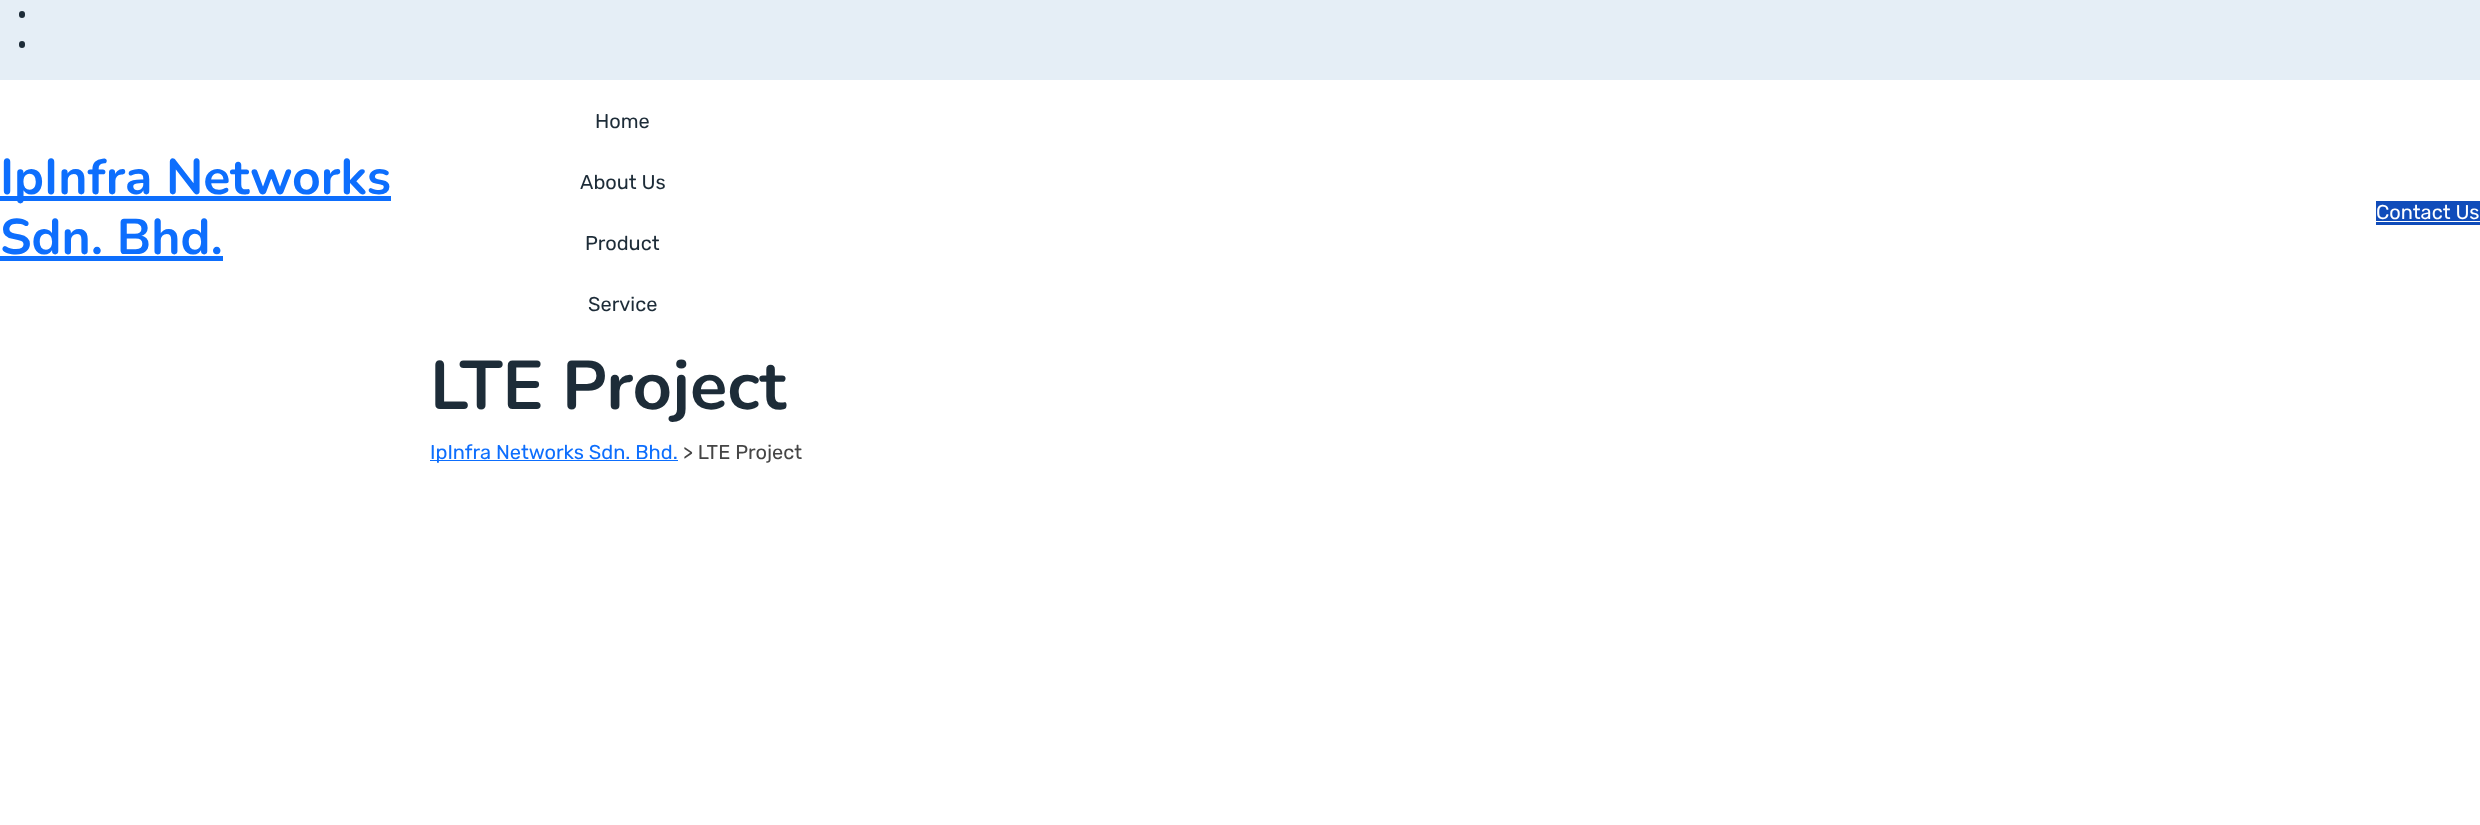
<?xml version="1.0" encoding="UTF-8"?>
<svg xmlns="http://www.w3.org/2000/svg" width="2480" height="825">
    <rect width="100%" height="100%" fill="#FFFFFF"/>
    <rect x="0" y="0" width="2480" height="80" fill="#E5EEF6"/>
    <rect x="19" y="11" width="6" height="7" rx="3" fill="#1D2C38"/>
    <rect x="19" y="41" width="6" height="7" rx="3" fill="#1D2C38"/>
    <rect x="0" y="196" width="391" height="5" fill="#0D6EFD"/>
    <text font-family="Nunito" font-size="50" font-weight="200" fill="#0D6EFD">
        <tspan x="0" y="194">IpInfra Networks</tspan>
        <tspan x="0" y="254">Sdn. Bhd.</tspan>
    </text>
    <rect x="0" y="256" width="223" height="5" fill="#0D6EFD"/>
    <text x="595" y="128" font-family="Rubik" font-size="20" fill="#1D2C38">Home</text>
    <text x="580" y="189" font-family="Rubik" font-size="20" fill="#1D2C38">About Us</text>
    <text x="585" y="250" font-family="Rubik" font-size="20" fill="#1D2C38">Product</text>
    <text x="588" y="311" font-family="Rubik" font-size="20" fill="#1D2C38">Service</text>
    <rect x="2376" y="201" width="104" height="24" fill="#104CBA"/>
    <text x="2376" y="219" font-family="Rubik" font-size="20" fill="#FFFFFF">Contact Us</text>
    <rect x="2376" y="221" width="104" height="1" fill="#FFFFFF"/>
    <text x="430" y="409" font-family="Nunito" font-size="68.75" font-weight="200" fill="#1D2C38">LTE Project</text>
    <rect x="430" y="460" width="248" height="1" fill="#0D6EFD"/>
    <text x="430" y="459" font-family="Rubik" font-size="20" fill="#0D6EFD">IpInfra Networks Sdn. Bhd.</text>
    <text x="683" y="459" font-family="Rubik" font-size="20" fill="#454545">&gt; LTE Project</text>
</svg>
